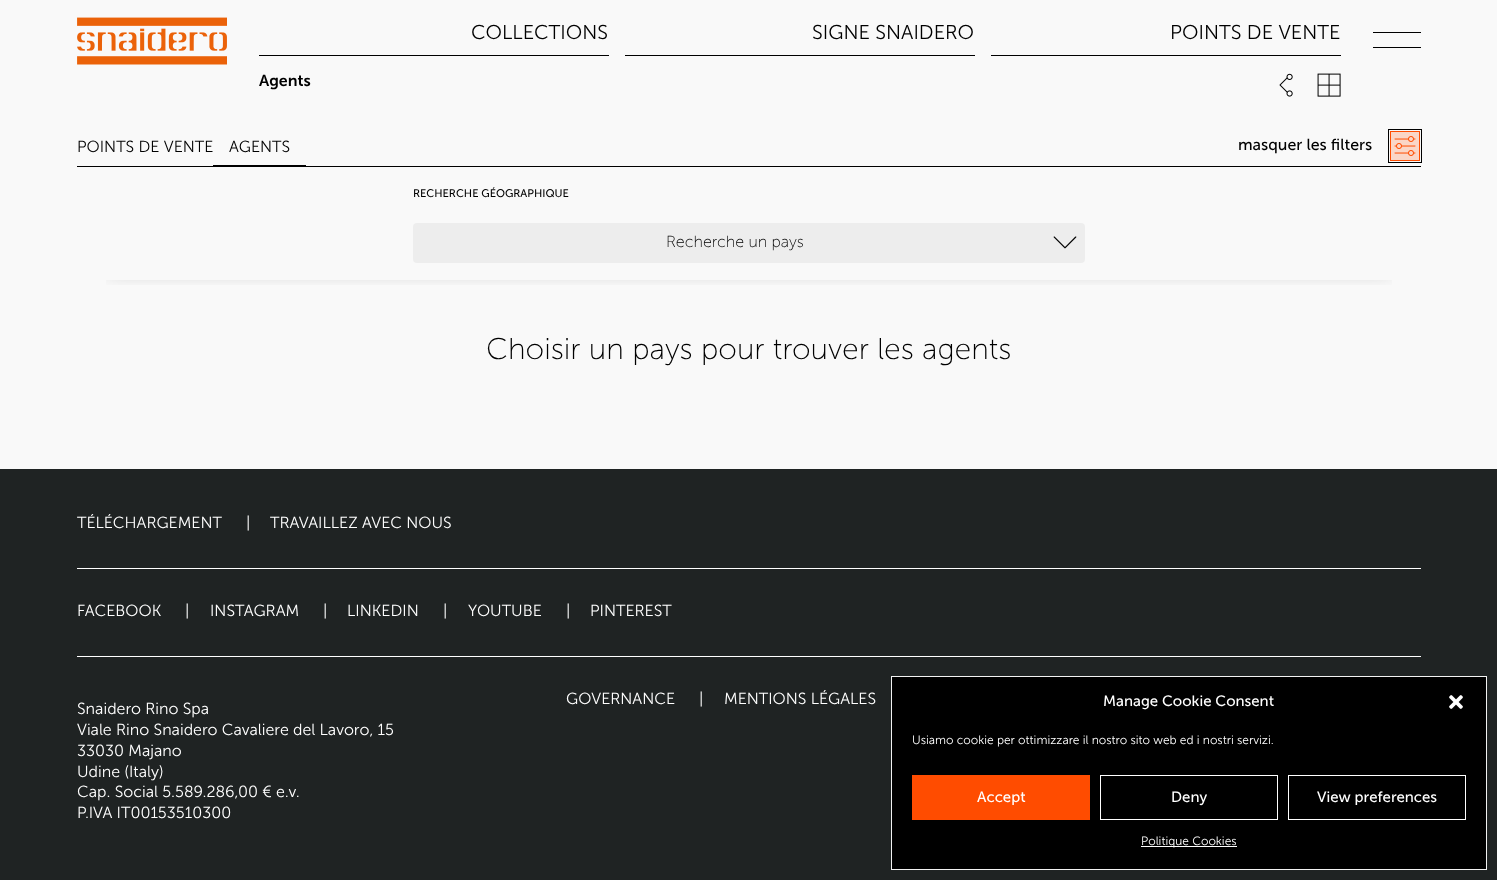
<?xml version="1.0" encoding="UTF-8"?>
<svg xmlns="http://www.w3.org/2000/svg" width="1497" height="880">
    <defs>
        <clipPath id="clip1"><rect x="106" y="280" width="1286" height="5"/></clipPath>
        <filter id="blur1" x="-50%" y="-200%" width="200%" height="500%"><feGaussianBlur stdDeviation="10"/></filter>
    </defs>
    <rect width="100%" height="100%" fill="#F9F9F9"/>
    <image x="77" y="17" width="150" height="48" href="img_01.png"/>
    <text x="471" y="39" font-family="'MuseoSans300'" font-size="20" fill="#000000">COLLECTIONS</text>
    <rect x="259" y="55" width="350" height="1" fill="#000000"/>
    <text x="812" y="39" font-family="'MuseoSans300'" font-size="20" fill="#000000">SIGNE SNAIDERO</text>
    <rect x="625" y="55" width="350" height="1" fill="#000000"/>
    <text x="1170" y="39" font-family="'MuseoSans300'" font-size="20" fill="#000000">POINTS DE VENTE</text>
    <rect x="991" y="55" width="350" height="1" fill="#000000"/>
    <text x="259" y="86" font-family="'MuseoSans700'" font-size="16" fill="#000000">Agents</text>
    <image x="1279" y="73" width="14" height="24" href="img_02.png"/>
    <image x="1317" y="73" width="24" height="24" href="img_03.png"/>
    <path d="M 1373 32 H 1421 V 33 H 1373 Z M 1373 47 H 1421 V 48 H 1373 Z" fill="#000000" fill-rule="evenodd"/>
    <rect x="77" y="166" width="1344" height="1" fill="#000000"/>
    <text x="77" y="152" font-family="'MuseoSans300'" font-size="16" fill="#000000">POINTS DE VENTE</text>
    <rect x="213" y="165" width="93" height="1" fill="#000000"/>
    <text x="229" y="152" font-family="'MuseoSans300'" font-size="16" fill="#000000">AGENTS</text>
    <text x="1238" y="150" font-family="'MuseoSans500'" font-size="16" fill="#000000">masquer les filters</text>
    <rect x="1388.5" y="129.5" width="33" height="33" fill="none" stroke="#000000"/>
    <rect x="1390" y="131" width="30" height="30" fill="#FAD6C7" stroke="#FF4C00" stroke-width="2"/>
    <rect x="1389.5" y="130.5" width="31" height="31" fill="none" stroke="#F9F9F9"/>
    <image x="1394" y="136" width="22" height="20" href="img_04.png"/>
    <g clip-path="url(#clip1)">
        <rect x="107" y="217" width="1284" height="53" fill="#000000" fill-opacity="0.3" filter="url(#blur1)"/>
    </g>
    <text x="413" y="197" font-family="'MuseoSans500'" font-size="11" fill="#000000">RECHERCHE GÉOGRAPHIQUE</text>
    <rect x="413" y="223" width="672" height="40" rx="4" fill="#EDEDED"/>
    <text x="666" y="247" font-family="'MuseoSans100'" font-size="16" fill="#000000">Recherche un pays</text>
    <image x="1053" y="236" width="24" height="13" href="img_05.png"/>
    <text x="486" y="359" font-family="'MuseoSans100'" font-size="30" fill="#000000">Choisir un pays pour trouver les agents</text>
    <rect x="0" y="469" width="1497" height="411" fill="#1F2323"/>
    <rect x="77" y="568" width="1344" height="1" fill="#FFFFFF"/>
    <text x="77" y="528" font-family="'MuseoSans300'" font-size="16" fill="#FFFFFF">TÉLÉCHARGEMENT</text>
    <text x="246" y="528" font-family="'MuseoSans300'" font-size="16" fill="#FFFFFF">|</text>
    <text x="270" y="528" font-family="'MuseoSans300'" font-size="16" fill="#FFFFFF">TRAVAILLEZ AVEC NOUS</text>
    <rect x="77" y="656" width="1344" height="1" fill="#FFFFFF"/>
    <text x="77" y="616" font-family="'MuseoSans300'" font-size="16" fill="#FFFFFF">FACEBOOK</text>
    <text x="185" y="616" font-family="'MuseoSans300'" font-size="16" fill="#FFFFFF">|</text>
    <text x="210" y="616" font-family="'MuseoSans300'" font-size="16" fill="#FFFFFF">INSTAGRAM</text>
    <text x="323" y="616" font-family="'MuseoSans300'" font-size="16" fill="#FFFFFF">|</text>
    <text x="347" y="616" font-family="'MuseoSans300'" font-size="16" fill="#FFFFFF">LINKEDIN</text>
    <text x="443" y="616" font-family="'MuseoSans300'" font-size="16" fill="#FFFFFF">|</text>
    <text x="468" y="616" font-family="'MuseoSans300'" font-size="16" fill="#FFFFFF">YOUTUBE</text>
    <text x="566" y="616" font-family="'MuseoSans300'" font-size="16" fill="#FFFFFF">|</text>
    <text x="590" y="616" font-family="'MuseoSans300'" font-size="16" fill="#FFFFFF">PINTEREST</text>
    <text x="566" y="704" font-family="'MuseoSans300'" font-size="16" fill="#FFFFFF">GOVERNANCE</text>
    <text x="699" y="704" font-family="'MuseoSans300'" font-size="16" fill="#FFFFFF">|</text>
    <text x="724" y="704" font-family="'MuseoSans300'" font-size="16" fill="#FFFFFF">MENTIONS LÉGALES</text>
    <text font-family="'MuseoSans300'" font-size="16" fill="#FFFFFF">
        <tspan x="77" y="714">Snaidero Rino Spa</tspan>
        <tspan x="77" y="735">Viale Rino Snaidero Cavaliere del Lavoro, 15</tspan>
        <tspan x="77" y="756">33030 Majano</tspan>
        <tspan x="77" y="777">Udine (Italy)</tspan>
        <tspan x="77" y="797">Cap. Social 5.589.286,00 € e.v.</tspan>
        <tspan x="77" y="818">P.IVA IT00153510300</tspan>
    </text>
    <rect x="891.5" y="676.5" width="595" height="193" fill="#000000" stroke="#F2F2F2"/>
    <text x="1103" y="706" font-family="'MuseoSans500'" font-size="15" fill="#FFFFFF">Manage Cookie Consent</text>
    <image x="1449" y="695" width="14" height="14" href="img_06.png"/>
    <text x="912" y="744" font-family="'MuseoSans300'" font-size="12" fill="#FFFFFF">Usiamo cookie per ottimizzare il nostro sito web ed i nostri servizi.</text>
    <rect x="912" y="775" width="178" height="45" fill="#FF4C00"/>
    <text x="977" y="802" font-family="'MuseoSans500'" font-size="15" fill="#FFFFFF">Accept</text>
    <rect x="1100.5" y="775.5" width="177" height="44" fill="none" stroke="#FFFFFF"/>
    <text x="1171" y="802" font-family="'MuseoSans500'" font-size="15" fill="#FFFFFF">Deny</text>
    <rect x="1288.5" y="775.5" width="177" height="44" fill="none" stroke="#FFFFFF"/>
    <text x="1317" y="802" font-family="'MuseoSans500'" font-size="15" fill="#FFFFFF">View preferences</text>
    <rect x="1141" y="846" width="96" height="1" fill="#FFFFFF"/>
    <text x="1141" y="845" font-family="'MuseoSans300'" font-size="12" fill="#FFFFFF">Politique Cookies</text>
</svg>
